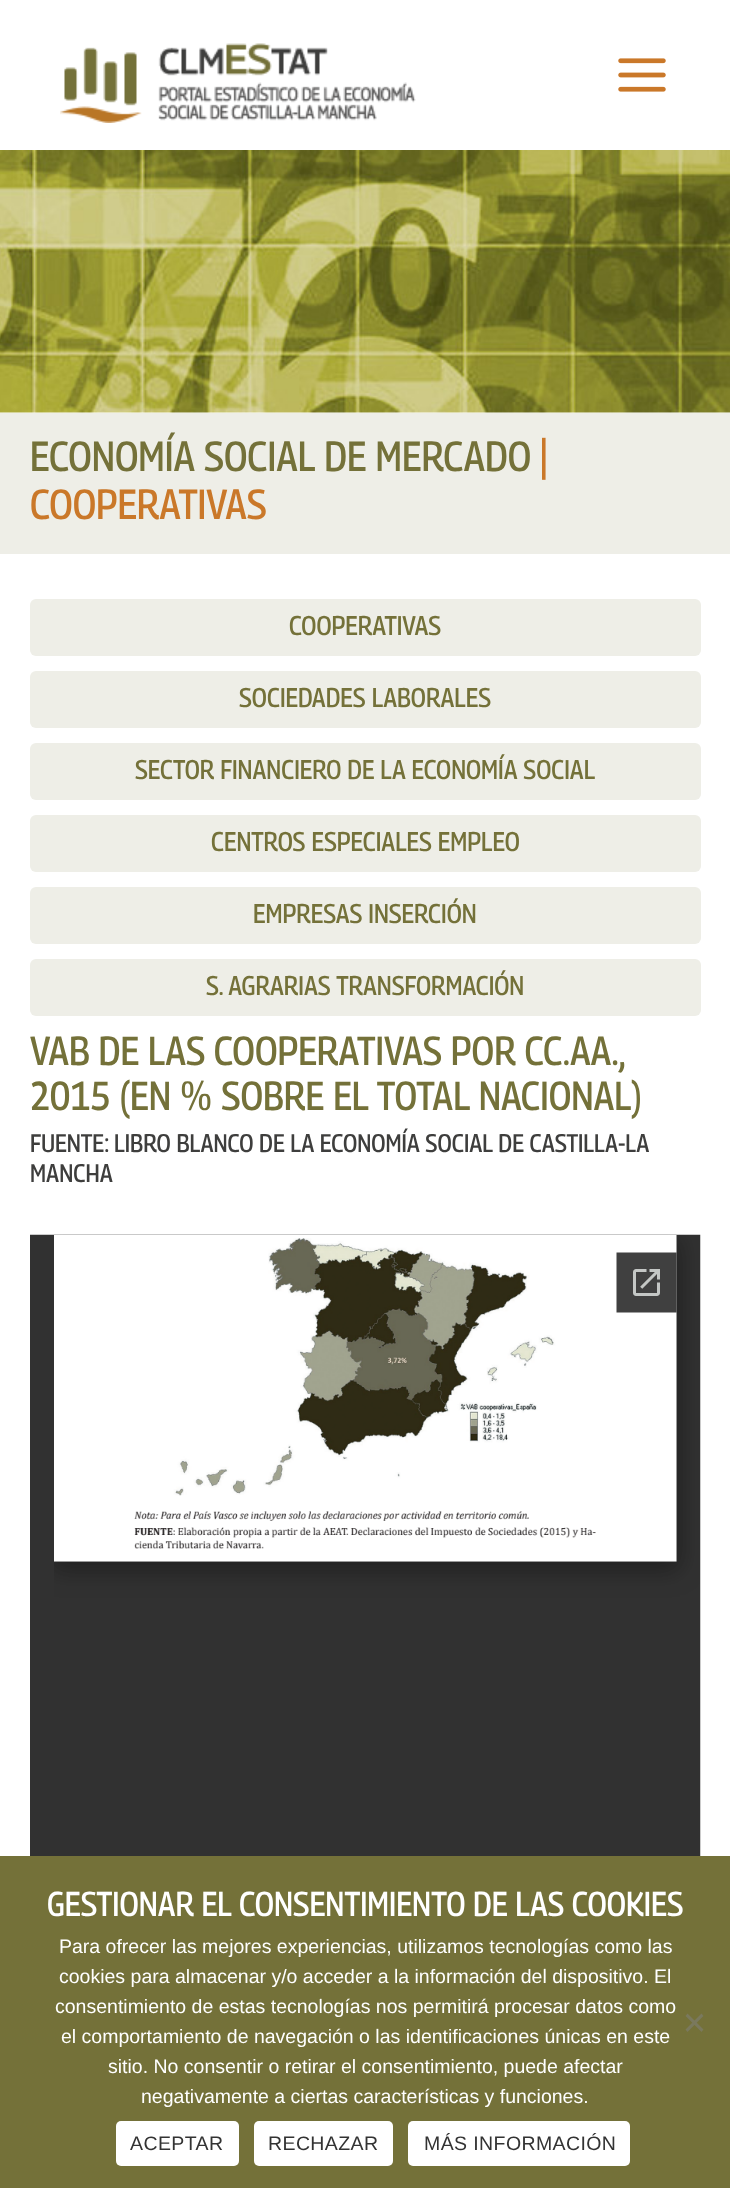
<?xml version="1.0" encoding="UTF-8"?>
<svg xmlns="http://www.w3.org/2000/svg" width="730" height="2188">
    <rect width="100%" height="100%" fill="#FFFFFF"/>
    <image x="60" y="43" width="356" height="80" href="img_01.png"/>
    <image x="618" y="58" width="48" height="34" href="img_02.png"/>
    <image x="0" y="150" width="730" height="263" href="img_03.png"/>
    <rect x="0" y="413" width="730" height="141" fill="#EEEEE7"/>
    <text x="30" y="471" font-family="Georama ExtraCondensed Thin" font-size="42" font-weight="500" fill="#747139">ECONOMÍA SOCIAL DE MERCADO</text>
    <text x="540" y="471" font-family="Georama ExtraCondensed Thin" font-size="42" font-weight="500" fill="#CA7829">|</text>
    <text x="30" y="519" font-family="Georama ExtraCondensed Thin" font-size="42" font-weight="500" fill="#CA7829">COOPERATIVAS</text>
    <rect x="30" y="599" width="671" height="57" rx="6" fill="#EEEEE7"/>
    <text x="289" y="635" font-family="Georama ExtraCondensed Thin" font-size="27" font-weight="500" fill="#747139">COOPERATIVAS</text>
    <rect x="30" y="671" width="671" height="57" rx="6" fill="#EEEEE7"/>
    <text x="239" y="707" font-family="Georama ExtraCondensed Thin" font-size="27" font-weight="500" fill="#747139">SOCIEDADES LABORALES</text>
    <rect x="30" y="743" width="671" height="57" rx="6" fill="#EEEEE7"/>
    <text x="135" y="779" font-family="Georama ExtraCondensed Thin" font-size="27" font-weight="500" fill="#747139">SECTOR FINANCIERO DE LA ECONOMÍA SOCIAL</text>
    <rect x="30" y="815" width="671" height="57" rx="6" fill="#EEEEE7"/>
    <text x="211" y="851" font-family="Georama ExtraCondensed Thin" font-size="27" font-weight="500" fill="#747139">CENTROS ESPECIALES EMPLEO</text>
    <rect x="30" y="887" width="671" height="57" rx="6" fill="#EEEEE7"/>
    <text x="253" y="923" font-family="Georama ExtraCondensed Thin" font-size="27" font-weight="500" fill="#747139">EMPRESAS INSERCIÓN</text>
    <rect x="30" y="959" width="671" height="57" rx="6" fill="#EEEEE7"/>
    <text x="206" y="995" font-family="Georama ExtraCondensed Thin" font-size="27" font-weight="500" fill="#747139">S. AGRARIAS TRANSFORMACIÓN</text>
    <text font-family="Georama ExtraCondensed Thin" font-size="40.5" font-weight="500" fill="#747139">
        <tspan x="30" y="1065" word-spacing="-0.25">VAB DE LAS COOPERATIVAS POR CC.AA.,</tspan>
        <tspan x="30" y="1110">2015 (EN % SOBRE EL TOTAL NACIONAL)</tspan>
    </text>
    <text font-family="Georama ExtraCondensed Thin" font-size="25.5" font-weight="500" fill="#3E3E3D">
        <tspan x="30" y="1152">FUENTE: LIBRO BLANCO DE LA ECONOMÍA SOCIAL DE CASTILLA-LA</tspan>
        <tspan x="30" y="1182">MANCHA</tspan>
    </text>
    <image x="30" y="1234" width="671" height="622" href="img_04.png"/>
    <rect x="0" y="1856" width="730" height="332" fill="#747139"/>
    <text x="47" y="1916" font-family="Georama ExtraCondensed Thin" font-size="34.5" font-weight="500" fill="#FFFFFF">GESTIONAR EL CONSENTIMIENTO DE LAS COOKIES</text>
    <text font-family="Liberation Sans" font-size="19.5" fill="#FFFFFF">
        <tspan x="59" y="1953">Para ofrecer las mejores experiencias, utilizamos tecnologías como las</tspan>
        <tspan x="59" y="1983">cookies para almacenar y/o acceder a la información del dispositivo. El</tspan>
    </text>
    <text x="55" y="2013" font-family="Liberation Sans" font-size="19.5" fill="#FFFFFF">consentimiento de estas tecnologías nos permitirá procesar datos como</text>
    <text x="61" y="2043" font-family="Liberation Sans" font-size="19.5" fill="#FFFFFF">el comportamiento de navegación o las identificaciones únicas en este</text>
    <text x="108" y="2073" font-family="Liberation Sans" font-size="19.5" fill="#FFFFFF">sitio. No consentir o retirar el consentimiento, puede afectar</text>
    <text x="141" y="2103" font-family="Liberation Sans" font-size="19.5" fill="#FFFFFF">negativamente a ciertas características y funciones.</text>
    <path d="M 701.5 2013.5 L 703.5 2016 L 687.5 2032 L 685.5 2029.5 Z" fill="#7A795D"/>
    <path d="M 685.5 2016 L 687.5 2013.5 L 703.5 2029.5 L 701.5 2032 Z" fill="#7A795D"/>
    <rect x="116" y="2121" width="123" height="45" rx="5" fill="#FFFFFF"/>
    <text x="130" y="2150" font-family="Liberation Sans" font-size="19.5" letter-spacing="0.4" fill="#333333">ACEPTAR</text>
    <rect x="254" y="2121" width="139" height="45" rx="5" fill="#FFFFFF"/>
    <text x="268" y="2150" font-family="Liberation Sans" font-size="19.5" letter-spacing="0.4" fill="#333333">RECHAZAR</text>
    <rect x="408" y="2121" width="222" height="45" rx="5" fill="#FFFFFF"/>
    <text x="424" y="2150" font-family="Liberation Sans" font-size="19.5" letter-spacing="0.4" fill="#333333">MÁS INFORMACIÓN</text>
</svg>
